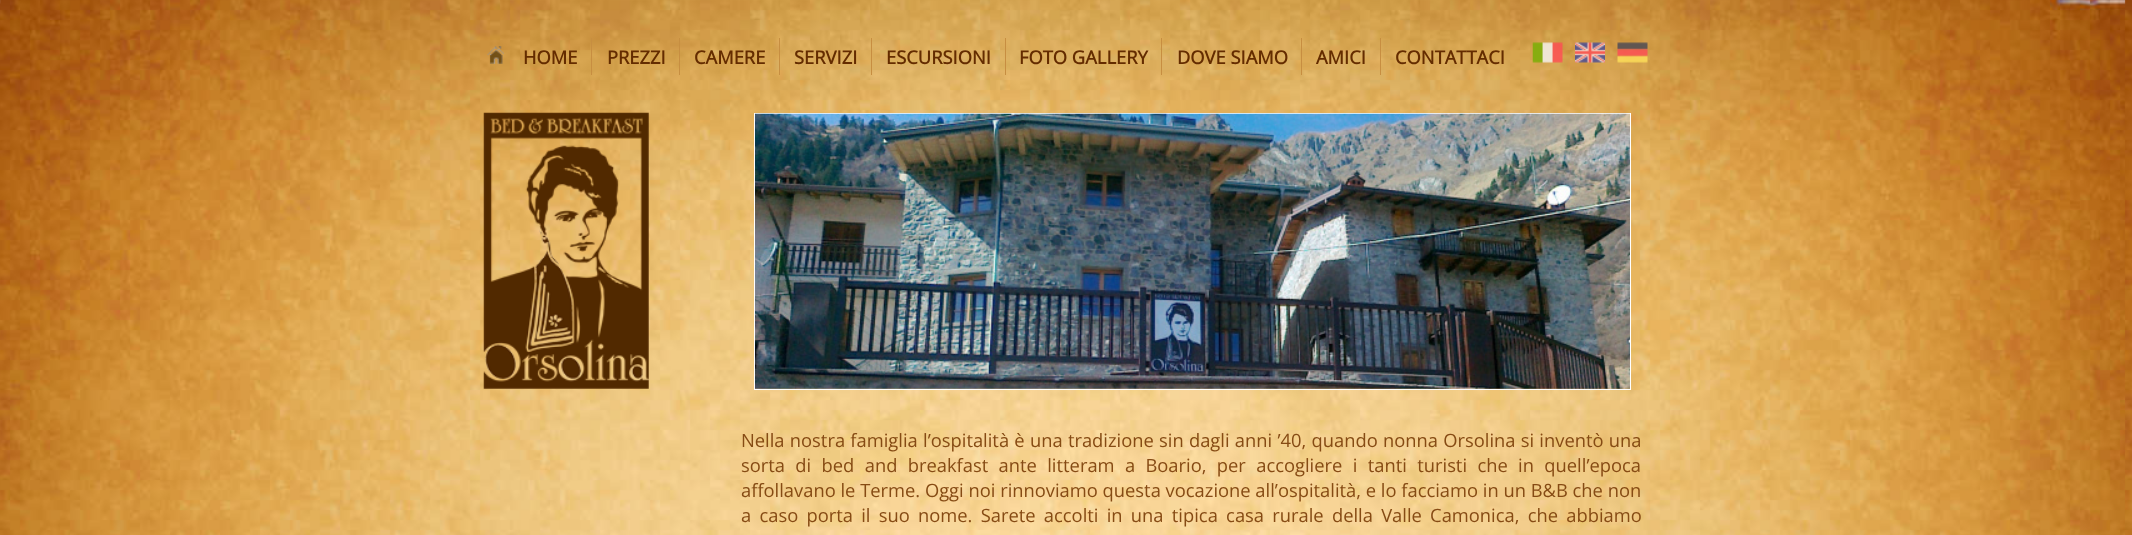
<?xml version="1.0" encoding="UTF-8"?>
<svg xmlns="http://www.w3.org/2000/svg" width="2132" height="535">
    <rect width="100%" height="100%" fill="#FFFFFF"/>
    <image x="0" y="0" width="2132" height="535" href="img_01.png"/>
    <rect x="591" y="38" width="1" height="37" fill="#C78E41"/>
    <image x="487" y="46" width="17" height="18" href="img_02.png"/>
    <text x="523" y="64" font-family="Open Sans" font-size="18.35" font-weight="700" fill="#642C00">HOME</text>
    <rect x="679" y="38" width="1" height="37" fill="#C78E41"/>
    <text x="607" y="64" font-family="Open Sans" font-size="18.35" font-weight="700" fill="#642C00">PREZZI</text>
    <rect x="779" y="38" width="1" height="37" fill="#C78E41"/>
    <text x="694" y="64" font-family="Open Sans" font-size="18.35" font-weight="700" fill="#642C00">CAMERE</text>
    <rect x="871" y="38" width="1" height="37" fill="#C78E41"/>
    <text x="794" y="64" font-family="Open Sans" font-size="18.35" font-weight="700" fill="#642C00">SERVIZI</text>
    <rect x="1005" y="38" width="1" height="37" fill="#C78E41"/>
    <text x="886" y="64" font-family="Open Sans" font-size="18.35" font-weight="700" fill="#642C00">ESCURSIONI</text>
    <rect x="1161" y="38" width="1" height="37" fill="#C78E41"/>
    <text x="1019" y="64" font-family="Open Sans" font-size="18.35" font-weight="700" fill="#642C00">FOTO GALLERY</text>
    <rect x="1301" y="38" width="1" height="37" fill="#C78E41"/>
    <text x="1177" y="64" font-family="Open Sans" font-size="18.35" font-weight="700" fill="#642C00">DOVE SIAMO</text>
    <rect x="1380" y="38" width="1" height="37" fill="#C78E41"/>
    <text x="1316" y="64" font-family="Open Sans" font-size="18.35" font-weight="700" fill="#642C00">AMICI</text>
    <text x="1395" y="64" font-family="Open Sans" font-size="18.35" font-weight="700" fill="#642C00">CONTATTACI</text>
    <image x="1532" y="42" width="31" height="21" href="img_03.png"/>
    <image x="1575" y="42" width="30" height="21" href="img_04.png"/>
    <image x="1617" y="42" width="31" height="21" href="img_05.png"/>
    <image x="483" y="112" width="166" height="277" href="img_06.png"/>
    <rect x="754.5" y="113.5" width="876" height="276" fill="none" stroke="#FFFFFF"/>
    <image x="755" y="113" width="875" height="276" href="img_07.png"/>
    <text font-family="Open Sans" font-size="18.35" fill="#864B14">
        <tspan x="741" y="447" word-spacing="0.5">Nella nostra famiglia l’ospitalità è una tradizione sin dagli anni ’40, quando nonna Orsolina si inventò una</tspan>
        <tspan x="741" y="472" word-spacing="5.6">sorta di bed and breakfast ante litteram a Boario, per accogliere i tanti turisti che in quell’epoca</tspan>
        <tspan x="741" y="497">affollavano le Terme. Oggi noi rinnoviamo questa vocazione all’ospitalità, e lo facciamo in un B&amp;B che non</tspan>
        <tspan x="741" y="522" word-spacing="3.5">a caso porta il suo nome. Sarete accolti in una tipica casa rurale della Valle Camonica, che abbiamo</tspan>
    </text>
</svg>
